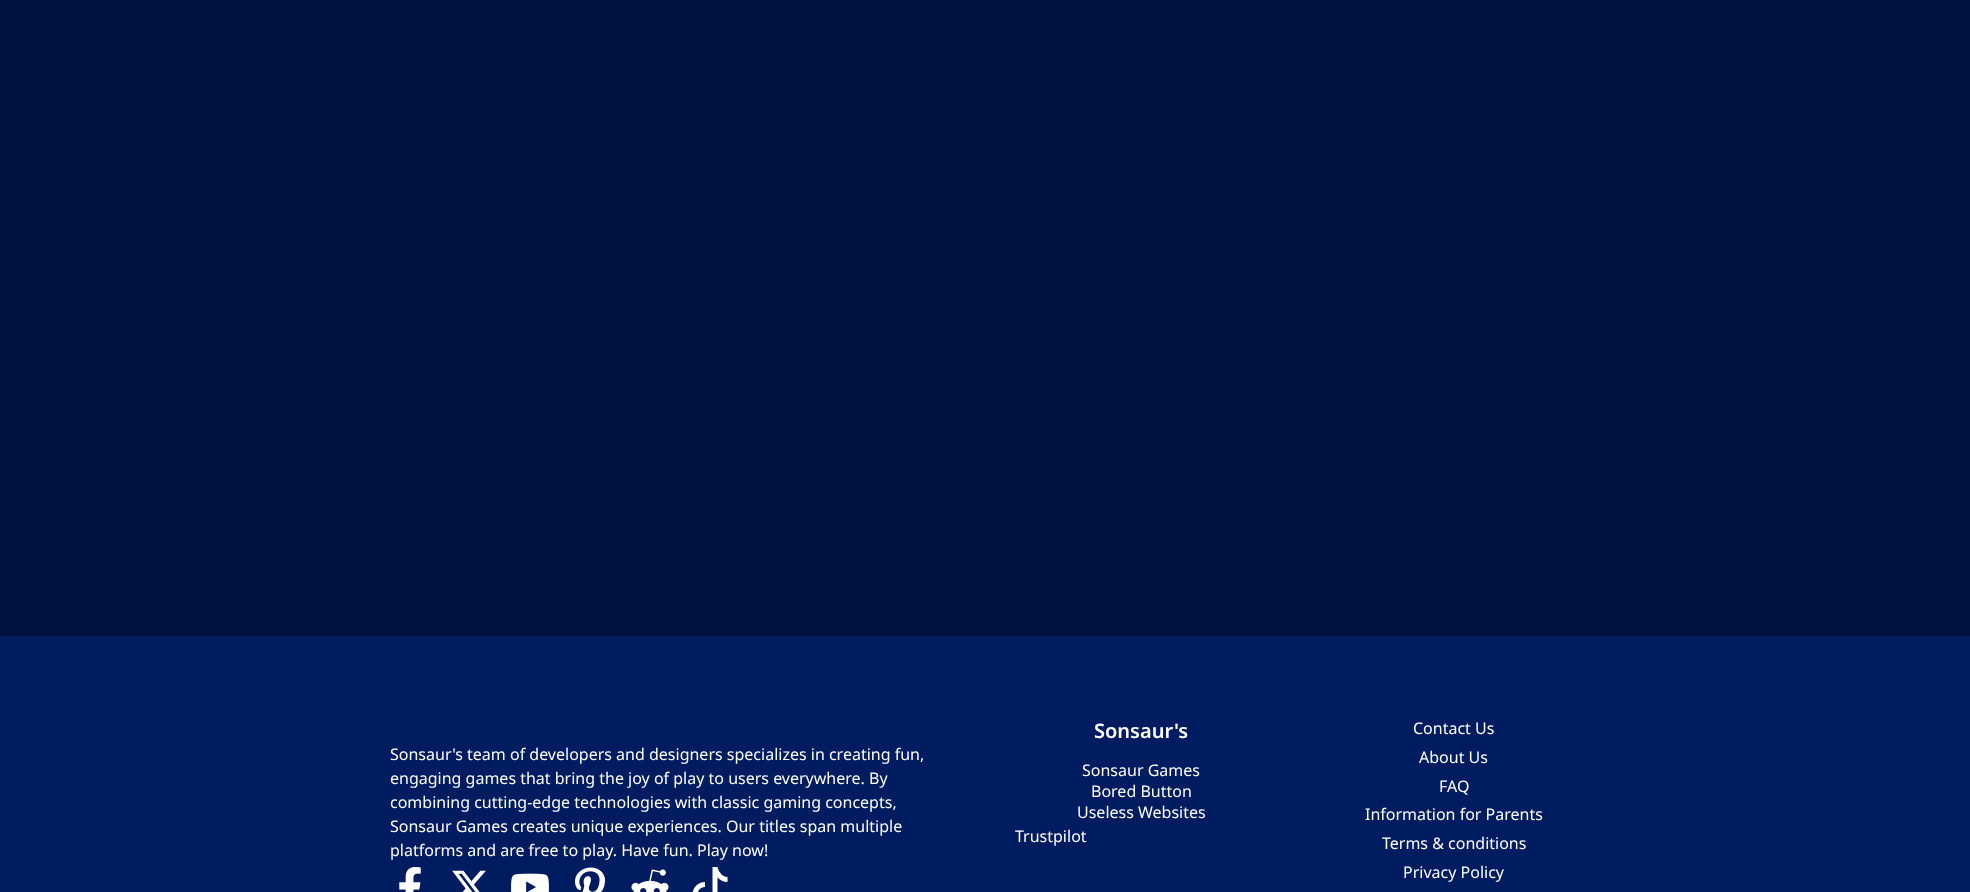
<?xml version="1.0" encoding="UTF-8"?>
<svg xmlns="http://www.w3.org/2000/svg" width="1970" height="892">
    <rect width="100%" height="100%" fill="#001240"/>
    <rect x="0" y="636" width="1970" height="256" fill="#001C61"/>
    <text font-family="Noto Sans" font-size="16" fill="#FFFFFF">
        <tspan x="390" y="760">Sonsaur's team of developers and designers specializes in creating fun,</tspan>
        <tspan x="390" y="784">engaging games that bring the joy of play to users everywhere. By</tspan>
        <tspan x="390" y="808">combining cutting-edge technologies with classic gaming concepts,</tspan>
        <tspan x="390" y="832">Sonsaur Games creates unique experiences. Our titles span multiple</tspan>
        <tspan x="390" y="856">platforms and are free to play. Have fun. Play now!</tspan>
    </text>
    <image x="399" y="867" width="22" height="25" href="img_01.png"/>
    <image x="452" y="870" width="34" height="22" href="img_02.png"/>
    <image x="511" y="873" width="38" height="19" href="img_03.png"/>
    <image x="575" y="867" width="30" height="25" href="img_04.png"/>
    <image x="631" y="869" width="38" height="23" href="img_05.png"/>
    <image x="692" y="867" width="36" height="25" href="img_06.png"/>
    <text x="1094" y="738" font-family="Noto Sans" font-size="20" font-weight="600" fill="#FFFFFF">Sonsaur's</text>
    <text x="1082" y="776" font-family="Noto Sans" font-size="16" fill="#FFFFFF">Sonsaur Games</text>
    <text x="1091" y="797" font-family="Noto Sans" font-size="16" fill="#FFFFFF">Bored Button</text>
    <text x="1077" y="818" font-family="Noto Sans" font-size="16" fill="#FFFFFF">Useless Websites</text>
    <text x="1015" y="842" font-family="Noto Sans" font-size="16" fill="#FFFFFF">Trustpilot</text>
    <text x="1413" y="734" font-family="Noto Sans" font-size="16" fill="#FFFFFF">Contact Us</text>
    <text x="1419" y="763" font-family="Noto Sans" font-size="16" fill="#FFFFFF">About Us</text>
    <text x="1439" y="792" font-family="Noto Sans" font-size="16" fill="#FFFFFF">FAQ</text>
    <text x="1365" y="820" font-family="Noto Sans" font-size="16" fill="#FFFFFF">Information for Parents</text>
    <text x="1382" y="849" font-family="Noto Sans" font-size="16" fill="#FFFFFF">Terms &amp; conditions</text>
    <text x="1403" y="878" font-family="Noto Sans" font-size="16" fill="#FFFFFF">Privacy Policy</text>
</svg>
